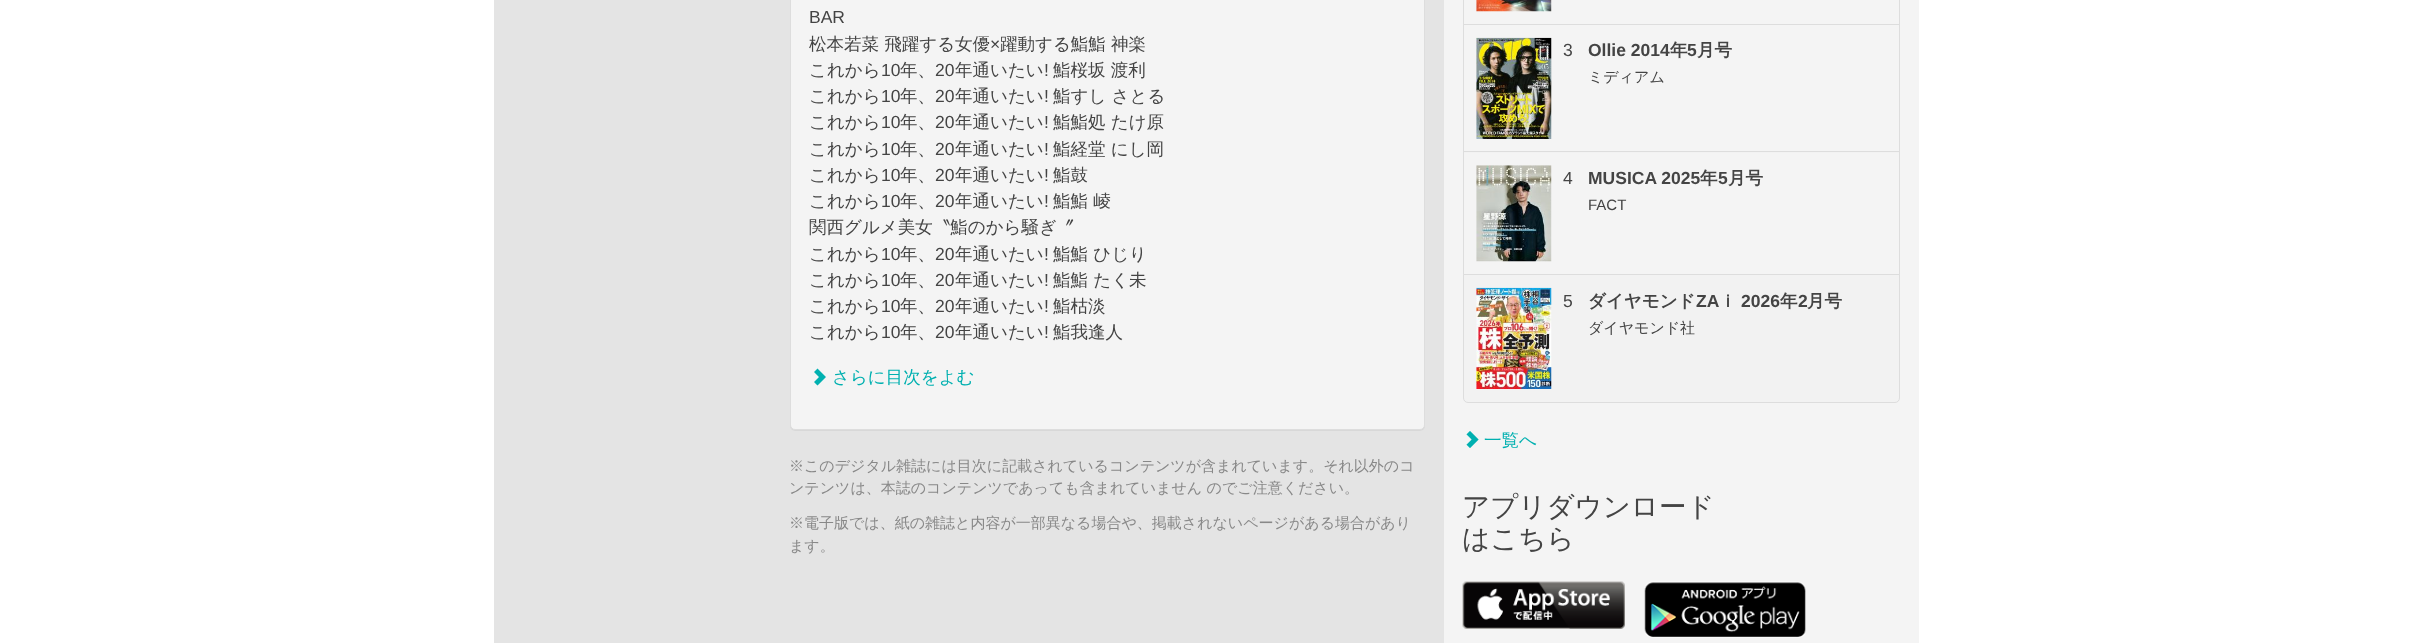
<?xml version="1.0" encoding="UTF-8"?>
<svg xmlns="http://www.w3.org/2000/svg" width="2411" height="643">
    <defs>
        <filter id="blur1" x="-50%" y="-200%" width="200%" height="500%"><feGaussianBlur stdDeviation="0.5"/></filter>
    </defs>
    <rect width="100%" height="100%" fill="#FFFFFF"/>
    <rect x="494" y="0" width="950" height="643" fill="#E4E4E4"/>
    <rect x="790" y="-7" width="635" height="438" rx="5" fill="#000000" fill-opacity="0.05" filter="url(#blur1)"/>
    <rect x="790.5" y="-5.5" width="634" height="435" rx="4.5" fill="#F4F4F4" stroke="#DDDDDD"/>
    <text x="809" y="23" font-family="Liberation Sans" font-size="17.5" fill="#444444">BAR</text>
    <text x="809" y="50" font-family="WenQuanYi Zen Hei" font-size="17.5" font-weight="500" fill="#444444">松本若菜 飛躍する女優</text>
    <text x="990" y="50" font-family="Liberation Sans" font-size="17.5" fill="#444444">×</text>
    <text x="1000" y="50" font-family="WenQuanYi Zen Hei" font-size="17.5" font-weight="500" fill="#444444">躍動する鮨鮨 神楽</text>
    <text x="809" y="76" font-family="WenQuanYi Zen Hei" font-size="17.5" font-weight="500" fill="#444444">これから</text>
    <text x="881" y="76" font-family="Liberation Sans" font-size="17.5" fill="#444444">10</text>
    <text x="900" y="76" font-family="WenQuanYi Zen Hei" font-size="17.5" font-weight="500" fill="#444444">年、</text>
    <text x="935" y="76" font-family="Liberation Sans" font-size="17.5" fill="#444444">20</text>
    <text x="955" y="76" font-family="WenQuanYi Zen Hei" font-size="17.5" font-weight="500" fill="#444444">年通いたい</text>
    <text x="1044" y="76" font-family="Liberation Sans" font-size="17.5" fill="#444444">!</text>
    <text x="1053" y="76" font-family="WenQuanYi Zen Hei" font-size="17.5" font-weight="500" fill="#444444">鮨桜坂 渡利</text>
    <text x="809" y="102" font-family="WenQuanYi Zen Hei" font-size="17.5" font-weight="500" fill="#444444">これから</text>
    <text x="881" y="102" font-family="Liberation Sans" font-size="17.5" fill="#444444">10</text>
    <text x="900" y="102" font-family="WenQuanYi Zen Hei" font-size="17.5" font-weight="500" fill="#444444">年、</text>
    <text x="935" y="102" font-family="Liberation Sans" font-size="17.5" fill="#444444">20</text>
    <text x="955" y="102" font-family="WenQuanYi Zen Hei" font-size="17.5" font-weight="500" fill="#444444">年通いたい</text>
    <text x="1044" y="102" font-family="Liberation Sans" font-size="17.5" fill="#444444">!</text>
    <text x="1053" y="102" font-family="WenQuanYi Zen Hei" font-size="17.5" font-weight="500" fill="#444444">鮨すし さとる</text>
    <text x="809" y="128" font-family="WenQuanYi Zen Hei" font-size="17.5" font-weight="500" fill="#444444">これから</text>
    <text x="881" y="128" font-family="Liberation Sans" font-size="17.5" fill="#444444">10</text>
    <text x="900" y="128" font-family="WenQuanYi Zen Hei" font-size="17.5" font-weight="500" fill="#444444">年、</text>
    <text x="935" y="128" font-family="Liberation Sans" font-size="17.5" fill="#444444">20</text>
    <text x="955" y="128" font-family="WenQuanYi Zen Hei" font-size="17.5" font-weight="500" fill="#444444">年通いたい</text>
    <text x="1044" y="128" font-family="Liberation Sans" font-size="17.5" fill="#444444">!</text>
    <text x="1053" y="128" font-family="WenQuanYi Zen Hei" font-size="17.5" font-weight="500" fill="#444444">鮨鮨処 たけ原</text>
    <text x="809" y="155" font-family="WenQuanYi Zen Hei" font-size="17.5" font-weight="500" fill="#444444">これから</text>
    <text x="881" y="155" font-family="Liberation Sans" font-size="17.5" fill="#444444">10</text>
    <text x="900" y="155" font-family="WenQuanYi Zen Hei" font-size="17.5" font-weight="500" fill="#444444">年、</text>
    <text x="935" y="155" font-family="Liberation Sans" font-size="17.5" fill="#444444">20</text>
    <text x="955" y="155" font-family="WenQuanYi Zen Hei" font-size="17.5" font-weight="500" fill="#444444">年通いたい</text>
    <text x="1044" y="155" font-family="Liberation Sans" font-size="17.5" fill="#444444">!</text>
    <text x="1053" y="155" font-family="WenQuanYi Zen Hei" font-size="17.5" font-weight="500" fill="#444444">鮨経堂 にし岡</text>
    <text x="809" y="181" font-family="WenQuanYi Zen Hei" font-size="17.5" font-weight="500" fill="#444444">これから</text>
    <text x="881" y="181" font-family="Liberation Sans" font-size="17.5" fill="#444444">10</text>
    <text x="900" y="181" font-family="WenQuanYi Zen Hei" font-size="17.5" font-weight="500" fill="#444444">年、</text>
    <text x="935" y="181" font-family="Liberation Sans" font-size="17.5" fill="#444444">20</text>
    <text x="955" y="181" font-family="WenQuanYi Zen Hei" font-size="17.5" font-weight="500" fill="#444444">年通いたい</text>
    <text x="1044" y="181" font-family="Liberation Sans" font-size="17.5" fill="#444444">!</text>
    <text x="1053" y="181" font-family="WenQuanYi Zen Hei" font-size="17.5" font-weight="500" fill="#444444">鮨鼓</text>
    <text x="809" y="207" font-family="WenQuanYi Zen Hei" font-size="17.5" font-weight="500" fill="#444444">これから</text>
    <text x="881" y="207" font-family="Liberation Sans" font-size="17.5" fill="#444444">10</text>
    <text x="900" y="207" font-family="WenQuanYi Zen Hei" font-size="17.5" font-weight="500" fill="#444444">年、</text>
    <text x="935" y="207" font-family="Liberation Sans" font-size="17.5" fill="#444444">20</text>
    <text x="955" y="207" font-family="WenQuanYi Zen Hei" font-size="17.5" font-weight="500" fill="#444444">年通いたい</text>
    <text x="1044" y="207" font-family="Liberation Sans" font-size="17.5" fill="#444444">!</text>
    <text x="1053" y="207" font-family="WenQuanYi Zen Hei" font-size="17.5" font-weight="500" fill="#444444">鮨鮨 崚</text>
    <text font-family="WenQuanYi Zen Hei" font-size="17.5" font-weight="500" fill="#444444">
        <tspan x="809" y="233">関西グルメ美女〝鮨のから騒ぎ〞</tspan>
        <tspan x="809" y="260">これから</tspan>
    </text>
    <text x="881" y="260" font-family="Liberation Sans" font-size="17.5" fill="#444444">10</text>
    <text x="900" y="260" font-family="WenQuanYi Zen Hei" font-size="17.5" font-weight="500" fill="#444444">年、</text>
    <text x="935" y="260" font-family="Liberation Sans" font-size="17.5" fill="#444444">20</text>
    <text x="955" y="260" font-family="WenQuanYi Zen Hei" font-size="17.5" font-weight="500" fill="#444444">年通いたい</text>
    <text x="1044" y="260" font-family="Liberation Sans" font-size="17.5" fill="#444444">!</text>
    <text x="1053" y="260" font-family="WenQuanYi Zen Hei" font-size="17.5" font-weight="500" fill="#444444">鮨鮨 ひじり</text>
    <text x="809" y="286" font-family="WenQuanYi Zen Hei" font-size="17.5" font-weight="500" fill="#444444">これから</text>
    <text x="881" y="286" font-family="Liberation Sans" font-size="17.5" fill="#444444">10</text>
    <text x="900" y="286" font-family="WenQuanYi Zen Hei" font-size="17.5" font-weight="500" fill="#444444">年、</text>
    <text x="935" y="286" font-family="Liberation Sans" font-size="17.5" fill="#444444">20</text>
    <text x="955" y="286" font-family="WenQuanYi Zen Hei" font-size="17.5" font-weight="500" fill="#444444">年通いたい</text>
    <text x="1044" y="286" font-family="Liberation Sans" font-size="17.5" fill="#444444">!</text>
    <text x="1053" y="286" font-family="WenQuanYi Zen Hei" font-size="17.5" font-weight="500" fill="#444444">鮨鮨 たく未</text>
    <text x="809" y="312" font-family="WenQuanYi Zen Hei" font-size="17.5" font-weight="500" fill="#444444">これから</text>
    <text x="881" y="312" font-family="Liberation Sans" font-size="17.5" fill="#444444">10</text>
    <text x="900" y="312" font-family="WenQuanYi Zen Hei" font-size="17.5" font-weight="500" fill="#444444">年、</text>
    <text x="935" y="312" font-family="Liberation Sans" font-size="17.5" fill="#444444">20</text>
    <text x="955" y="312" font-family="WenQuanYi Zen Hei" font-size="17.5" font-weight="500" fill="#444444">年通いたい</text>
    <text x="1044" y="312" font-family="Liberation Sans" font-size="17.5" fill="#444444">!</text>
    <text x="1053" y="312" font-family="WenQuanYi Zen Hei" font-size="17.5" font-weight="500" fill="#444444">鮨枯淡</text>
    <text x="809" y="338" font-family="WenQuanYi Zen Hei" font-size="17.5" font-weight="500" fill="#444444">これから</text>
    <text x="881" y="338" font-family="Liberation Sans" font-size="17.5" fill="#444444">10</text>
    <text x="900" y="338" font-family="WenQuanYi Zen Hei" font-size="17.5" font-weight="500" fill="#444444">年、</text>
    <text x="935" y="338" font-family="Liberation Sans" font-size="17.5" fill="#444444">20</text>
    <text x="955" y="338" font-family="WenQuanYi Zen Hei" font-size="17.5" font-weight="500" fill="#444444">年通いたい</text>
    <text x="1044" y="338" font-family="Liberation Sans" font-size="17.5" fill="#444444">!</text>
    <text x="1053" y="338" font-family="WenQuanYi Zen Hei" font-size="17.5" font-weight="500" fill="#444444">鮨我逢人</text>
    <path d="M 814 382 L 819 377 L 814 372 L 817.5 368.5 L 826 377 L 817.5 385.5 Z" fill="#00B0B0"/>
    <text x="832" y="383" font-family="WenQuanYi Zen Hei" font-size="17.5" font-weight="500" fill="#00B0B0">さらに目次をよむ</text>
    <text font-family="WenQuanYi Zen Hei" font-size="15" font-weight="500" fill="#888888">
        <tspan x="789" y="471">※このデジタル雑誌には目次に記載されているコンテンツが含まれています。それ以外のコ</tspan>
        <tspan x="789" y="493">ンテンツは、本誌のコンテンツであっても含まれていません のでご注意ください。</tspan>
    </text>
    <text font-family="WenQuanYi Zen Hei" font-size="15" font-weight="500" fill="#888888">
        <tspan x="789" y="528">※電子版では、紙の雑誌と内容が一部異なる場合や、掲載されないページがある場合があり</tspan>
        <tspan x="789" y="551">ます。</tspan>
    </text>
    <rect x="1444" y="0" width="475" height="643" fill="#F4F4F4"/>
    <rect x="1463.5" y="-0.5" width="436" height="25" fill="none" stroke="#DDDDDD"/>
    <image x="1476" y="0" width="76" height="12" href="img_01.png"/>
    <rect x="1463.5" y="24.5" width="436" height="128" fill="none" stroke="#DDDDDD"/>
    <image x="1476" y="37" width="76" height="102" href="img_02.png"/>
    <text x="1563" y="56" font-family="Liberation Sans" font-size="17.5" fill="#444444">3</text>
    <text x="1588" y="56" font-family="Liberation Sans" font-size="17.5" font-weight="700" fill="#444444">Ollie 2014</text>
    <text x="1670" y="56" font-family="WenQuanYi Zen Hei" font-size="17.5" font-weight="700" fill="#444444">年</text>
    <text x="1687" y="56" font-family="Liberation Sans" font-size="17.5" font-weight="700" fill="#444444">5</text>
    <text x="1697" y="56" font-family="WenQuanYi Zen Hei" font-size="17.5" font-weight="700" fill="#444444">月号</text>
    <text x="1588" y="82" font-family="WenQuanYi Zen Hei" font-size="15" font-weight="500" fill="#444444">ミディアム</text>
    <rect x="1464" y="152" width="435" height="1" fill="#F2F2F2"/>
    <rect x="1463.5" y="151.5" width="436" height="123" fill="none" stroke="#DDDDDD"/>
    <image x="1476" y="165" width="76" height="97" href="img_03.png"/>
    <text x="1563" y="184" font-family="Liberation Sans" font-size="17.5" fill="#444444">4</text>
    <text x="1588" y="184" font-family="Liberation Sans" font-size="17.5" font-weight="700" fill="#444444">MUSICA 2025</text>
    <text x="1700" y="184" font-family="WenQuanYi Zen Hei" font-size="17.5" font-weight="700" fill="#444444">年</text>
    <text x="1718" y="184" font-family="Liberation Sans" font-size="17.5" font-weight="700" fill="#444444">5</text>
    <text x="1728" y="184" font-family="WenQuanYi Zen Hei" font-size="17.5" font-weight="700" fill="#444444">月号</text>
    <text x="1588" y="210" font-family="Liberation Sans" font-size="15" fill="#444444">FACT</text>
    <path d="M 1463.5 274.5 H 1899.5 V 398 C 1899.5 400.5 1897.5 402.5 1895 402.5 H 1468 C 1465.5 402.5 1463.5 400.5 1463.5 398 Z" fill="#F2F2F2" stroke="#DDDDDD"/>
    <image x="1476" y="287" width="76" height="102" href="img_04.png"/>
    <text x="1563" y="307" font-family="Liberation Sans" font-size="17.5" fill="#444444">5</text>
    <text x="1588" y="307" font-family="WenQuanYi Zen Hei" font-size="17.5" font-weight="700" fill="#444444">ダイヤモンド</text>
    <text x="1696" y="307" font-family="Liberation Sans" font-size="17.5" font-weight="700" fill="#444444">ZA</text>
    <text x="1719" y="307" font-family="WenQuanYi Zen Hei" font-size="17.5" font-weight="700" fill="#444444">ｉ</text>
    <text x="1741" y="307" font-family="Liberation Sans" font-size="17.5" font-weight="700" fill="#444444">2026</text>
    <text x="1780" y="307" font-family="WenQuanYi Zen Hei" font-size="17.5" font-weight="700" fill="#444444">年</text>
    <text x="1798" y="307" font-family="Liberation Sans" font-size="17.5" font-weight="700" fill="#444444">2</text>
    <text x="1807" y="307" font-family="WenQuanYi Zen Hei" font-size="17.5" font-weight="700" fill="#444444">月号</text>
    <text x="1588" y="333" font-family="WenQuanYi Zen Hei" font-size="15" font-weight="500" fill="#444444">ダイヤモンド社</text>
    <image x="1466" y="431" width="13" height="17" href="img_05.png"/>
    <text x="1484" y="446" font-family="WenQuanYi Zen Hei" font-size="17.5" font-weight="500" fill="#00B0B0">一覧へ</text>
    <text font-family="WenQuanYi Zen Hei" font-size="27.5" font-weight="500" fill="#444444">
        <tspan x="1462" y="516">アプリダウンロード</tspan>
        <tspan x="1462" y="548">はこちら</tspan>
    </text>
    <image x="1462" y="581" width="163" height="48" href="img_06.png"/>
    <image x="1644" y="581" width="162" height="57" href="img_07.png"/>
</svg>
